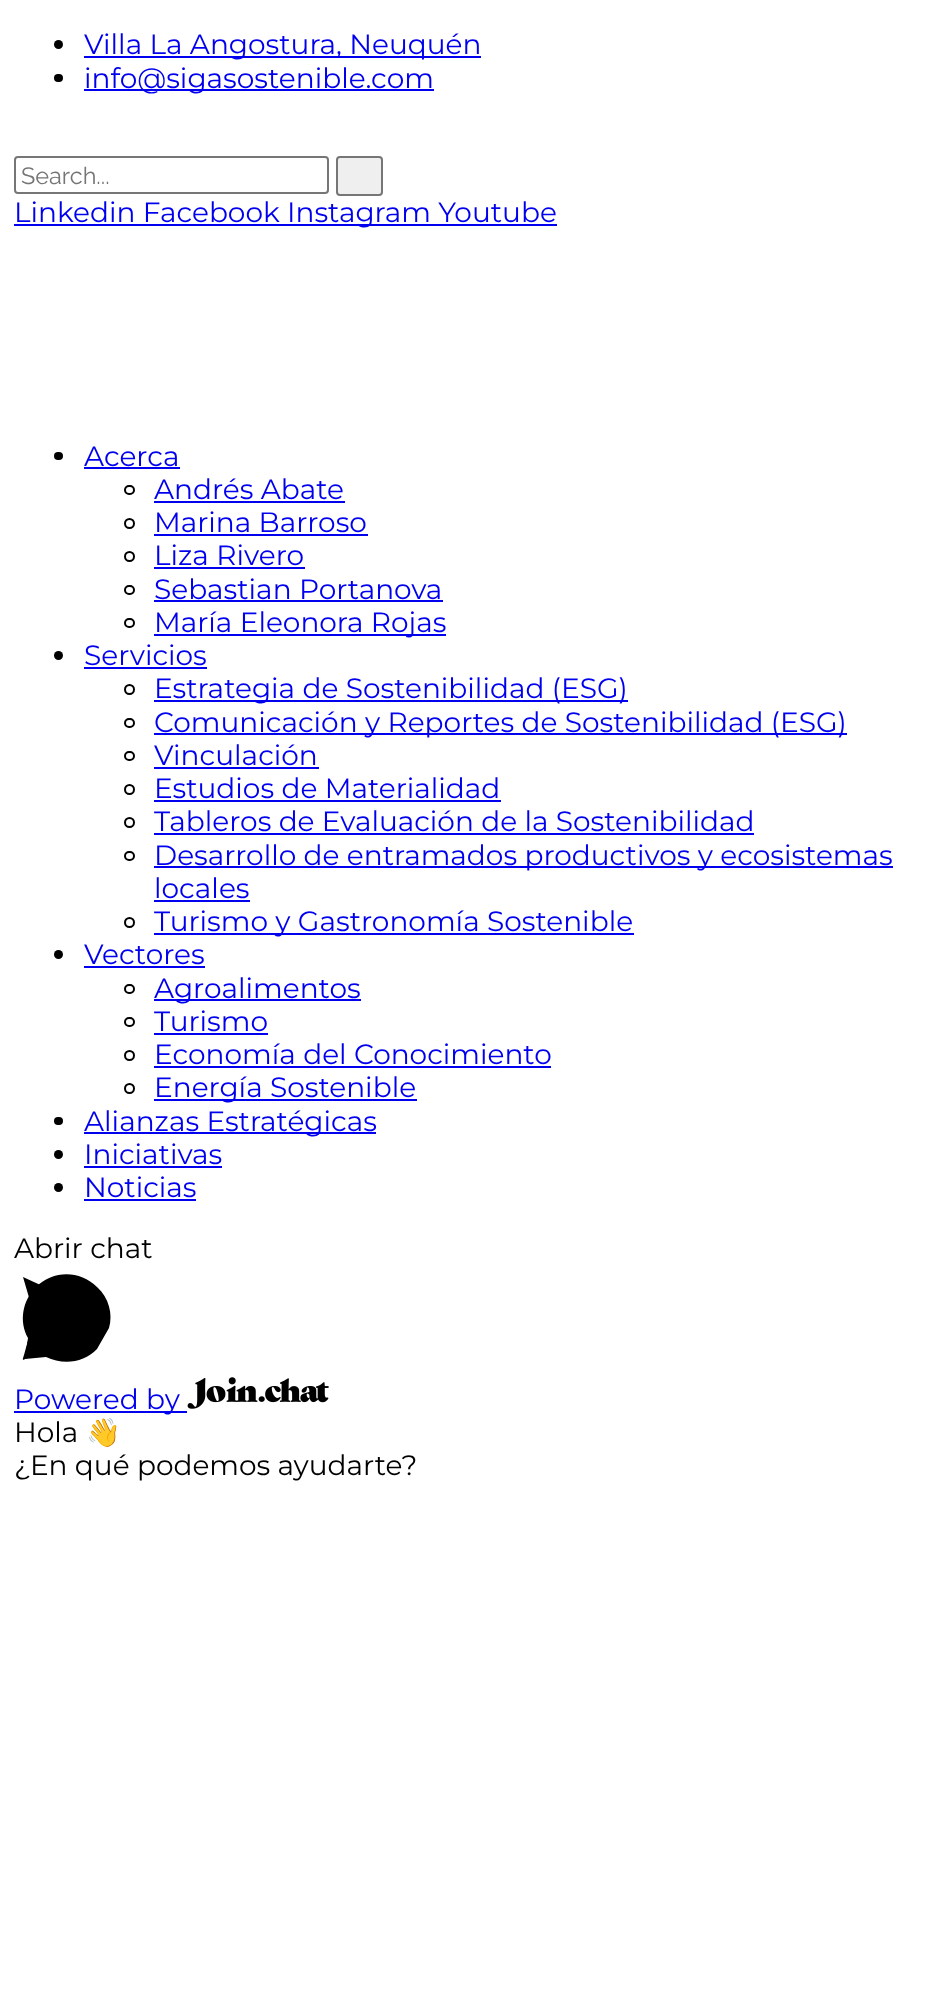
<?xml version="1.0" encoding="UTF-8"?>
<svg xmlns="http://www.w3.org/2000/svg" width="946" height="2001">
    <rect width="100%" height="100%" fill="#FFFFFF"/>
    <circle cx="58.5" cy="44.5" r="4.5" fill="#000000"/>
    <rect x="84" y="56" width="397" height="2" fill="#0000EE"/>
    <text x="84" y="54" font-family="Montserrat" font-size="28" fill="#0000EE">Villa La Angostura, Neuquén</text>
    <rect x="54" y="74" width="9" height="8" rx="4" fill="#000000"/>
    <rect x="84" y="89" width="350" height="2" fill="#0000EE"/>
    <text x="84" y="88" font-family="Montserrat" font-size="28" fill="#0000EE">info@sigasostenible.com</text>
    <rect x="15" y="157" width="313" height="36" rx="3" fill="none" stroke="#767676" stroke-width="2"/>
    <text x="21" y="184" font-family="Raleway" font-size="23.5" fill="#757575">Search...</text>
    <rect x="337" y="157" width="45" height="38" rx="3" fill="#EFEFEF" stroke="#767676" stroke-width="2"/>
    <rect x="14" y="224" width="543" height="2" fill="#0000EE"/>
    <text x="14" y="222" font-family="Montserrat" font-size="28" fill="#0000EE">Linkedin Facebook Instagram Youtube</text>
    <rect x="54" y="452" width="9" height="8" rx="4" fill="#000000"/>
    <text x="84" y="466" font-family="Montserrat" font-size="28" fill="#0000EE">Acerca</text>
    <rect x="84" y="467" width="96" height="2" fill="#0000EE"/>
    <rect x="125" y="486" width="9" height="8" rx="4" fill="none" stroke="#000000" stroke-width="2"/>
    <text x="154" y="499" font-family="Montserrat" font-size="28" fill="#0000EE">Andrés Abate</text>
    <rect x="154" y="501" width="191" height="2" fill="#0000EE"/>
    <circle cx="129.5" cy="523.5" r="4.5" fill="none" stroke="#000000" stroke-width="2"/>
    <text x="154" y="532" font-family="Montserrat" font-size="28" fill="#0000EE">Marina Barroso</text>
    <rect x="154" y="534" width="214" height="2" fill="#0000EE"/>
    <circle cx="129.5" cy="556.5" r="4.5" fill="none" stroke="#000000" stroke-width="2"/>
    <text x="154" y="565" font-family="Montserrat" font-size="28" fill="#0000EE">Liza Rivero</text>
    <rect x="154" y="567" width="151" height="2" fill="#0000EE"/>
    <rect x="125" y="586" width="9" height="8" rx="4" fill="none" stroke="#000000" stroke-width="2"/>
    <text x="154" y="599" font-family="Montserrat" font-size="28" fill="#0000EE">Sebastian Portanova</text>
    <rect x="154" y="600" width="289" height="2" fill="#0000EE"/>
    <rect x="125" y="619" width="9" height="8" rx="4" fill="none" stroke="#000000" stroke-width="2"/>
    <rect x="154" y="634" width="292" height="2" fill="#0000EE"/>
    <text x="154" y="632" font-family="Montserrat" font-size="28" fill="#0000EE">María Eleonora Rojas</text>
    <circle cx="58.5" cy="655.5" r="4.5" fill="#000000"/>
    <text x="84" y="665" font-family="Montserrat" font-size="28" fill="#0000EE">Servicios</text>
    <rect x="84" y="667" width="123" height="2" fill="#0000EE"/>
    <circle cx="129.5" cy="689.5" r="4.5" fill="none" stroke="#000000" stroke-width="2"/>
    <rect x="154" y="700" width="474" height="2" fill="#0000EE"/>
    <text x="154" y="698" font-family="Montserrat" font-size="28" fill="#0000EE">Estrategia de Sostenibilidad (ESG)</text>
    <rect x="125" y="719" width="9" height="8" rx="4" fill="none" stroke="#000000" stroke-width="2"/>
    <rect x="154" y="733" width="693" height="2" fill="#0000EE"/>
    <text x="154" y="732" font-family="Montserrat" font-size="28" fill="#0000EE">Comunicación y Reportes de Sostenibilidad (ESG)</text>
    <rect x="125" y="752" width="9" height="8" rx="4" fill="none" stroke="#000000" stroke-width="2"/>
    <text x="154" y="765" font-family="Montserrat" font-size="28" fill="#0000EE">Vinculación</text>
    <rect x="154" y="767" width="165" height="2" fill="#0000EE"/>
    <circle cx="129.5" cy="789.5" r="4.5" fill="none" stroke="#000000" stroke-width="2"/>
    <text x="154" y="798" font-family="Montserrat" font-size="28" fill="#0000EE">Estudios de Materialidad</text>
    <rect x="154" y="800" width="347" height="2" fill="#0000EE"/>
    <circle cx="129.5" cy="822.5" r="4.5" fill="none" stroke="#000000" stroke-width="2"/>
    <text x="154" y="831" font-family="Montserrat" font-size="28" fill="#0000EE">Tableros de Evaluación de la Sostenibilidad</text>
    <rect x="154" y="833" width="600" height="2" fill="#0000EE"/>
    <rect x="125" y="852" width="9" height="8" rx="4" fill="none" stroke="#000000" stroke-width="2"/>
    <rect x="154" y="866" width="739" height="2" fill="#0000EE"/>
    <text font-family="Montserrat" font-size="28" fill="#0000EE">
        <tspan x="154" y="865">Desarrollo de entramados productivos y ecosistemas</tspan>
        <tspan x="154" y="898">locales</tspan>
    </text>
    <rect x="154" y="900" width="96" height="2" fill="#0000EE"/>
    <circle cx="129.5" cy="922.5" r="4.5" fill="none" stroke="#000000" stroke-width="2"/>
    <rect x="154" y="933" width="480" height="2" fill="#0000EE"/>
    <text x="154" y="931" font-family="Montserrat" font-size="28" fill="#0000EE">Turismo y Gastronomía Sostenible</text>
    <circle cx="58.5" cy="954.5" r="4.5" fill="#000000"/>
    <text x="84" y="964" font-family="Montserrat" font-size="28" fill="#0000EE">Vectores</text>
    <rect x="84" y="966" width="121" height="2" fill="#0000EE"/>
    <rect x="125" y="985" width="9" height="8" rx="4" fill="none" stroke="#000000" stroke-width="2"/>
    <rect x="154" y="999" width="207" height="2" fill="#0000EE"/>
    <text x="154" y="998" font-family="Montserrat" font-size="28" fill="#0000EE">Agroalimentos</text>
    <rect x="125" y="1018" width="9" height="8" rx="4" fill="none" stroke="#000000" stroke-width="2"/>
    <text x="154" y="1031" font-family="Montserrat" font-size="28" fill="#0000EE">Turismo</text>
    <rect x="154" y="1033" width="114" height="2" fill="#0000EE"/>
    <circle cx="129.5" cy="1055.5" r="4.5" fill="none" stroke="#000000" stroke-width="2"/>
    <text x="154" y="1064" font-family="Montserrat" font-size="28" fill="#0000EE">Economía del Conocimiento</text>
    <rect x="154" y="1066" width="397" height="2" fill="#0000EE"/>
    <circle cx="129.5" cy="1088.5" r="4.5" fill="none" stroke="#000000" stroke-width="2"/>
    <rect x="154" y="1099" width="263" height="2" fill="#0000EE"/>
    <text x="154" y="1097" font-family="Montserrat" font-size="28" fill="#0000EE">Energía Sostenible</text>
    <rect x="54" y="1117" width="9" height="8" rx="4" fill="#000000"/>
    <rect x="84" y="1132" width="292" height="2" fill="#0000EE"/>
    <text x="84" y="1131" font-family="Montserrat" font-size="28" fill="#0000EE">Alianzas Estratégicas</text>
    <circle cx="58.5" cy="1154.5" r="4.5" fill="#000000"/>
    <text x="84" y="1164" font-family="Montserrat" font-size="28" fill="#0000EE">Iniciativas</text>
    <rect x="84" y="1166" width="138" height="2" fill="#0000EE"/>
    <circle cx="58.5" cy="1187.5" r="4.5" fill="#000000"/>
    <text x="84" y="1197" font-family="Montserrat" font-size="28" fill="#0000EE">Noticias</text>
    <rect x="84" y="1199" width="112" height="2" fill="#0000EE"/>
    <text x="14" y="1258" font-family="Montserrat" font-size="28" fill="#000000">Abrir chat</text>
    <path d="M 58 1318 H 35 L 23 1277 L 110 1317 V 1318 L 38 1352 C 23 1359 21 1364 24 1355 L 30 1333" fill="#000000"/>
    <path d="M 97 1349 C 84 1363 63 1365 46 1357 L 25 1359 L 28 1338 C 19 1322 22 1301 36 1287 C 53 1270 80 1270 97 1287 C 109 1298 113 1314 109 1328" fill="#000000"/>
    <rect x="14" y="1411" width="173" height="2" fill="#0000EE"/>
    <text x="14" y="1409" font-family="Montserrat" font-size="28" fill="#0000EE">Powered by</text>
    <image x="187" y="1377" width="142" height="32" href="img_01.png"/>
    <text x="14" y="1442" font-family="Montserrat" font-size="28" fill="#000000">Hola</text>
    <text x="86" y="1442" font-family="Noto Color Emoji" font-size="28" fill="#000000">👋</text>
    <text x="14" y="1475" font-family="Montserrat" font-size="28" fill="#000000">¿En qué podemos ayudarte?</text>
</svg>
